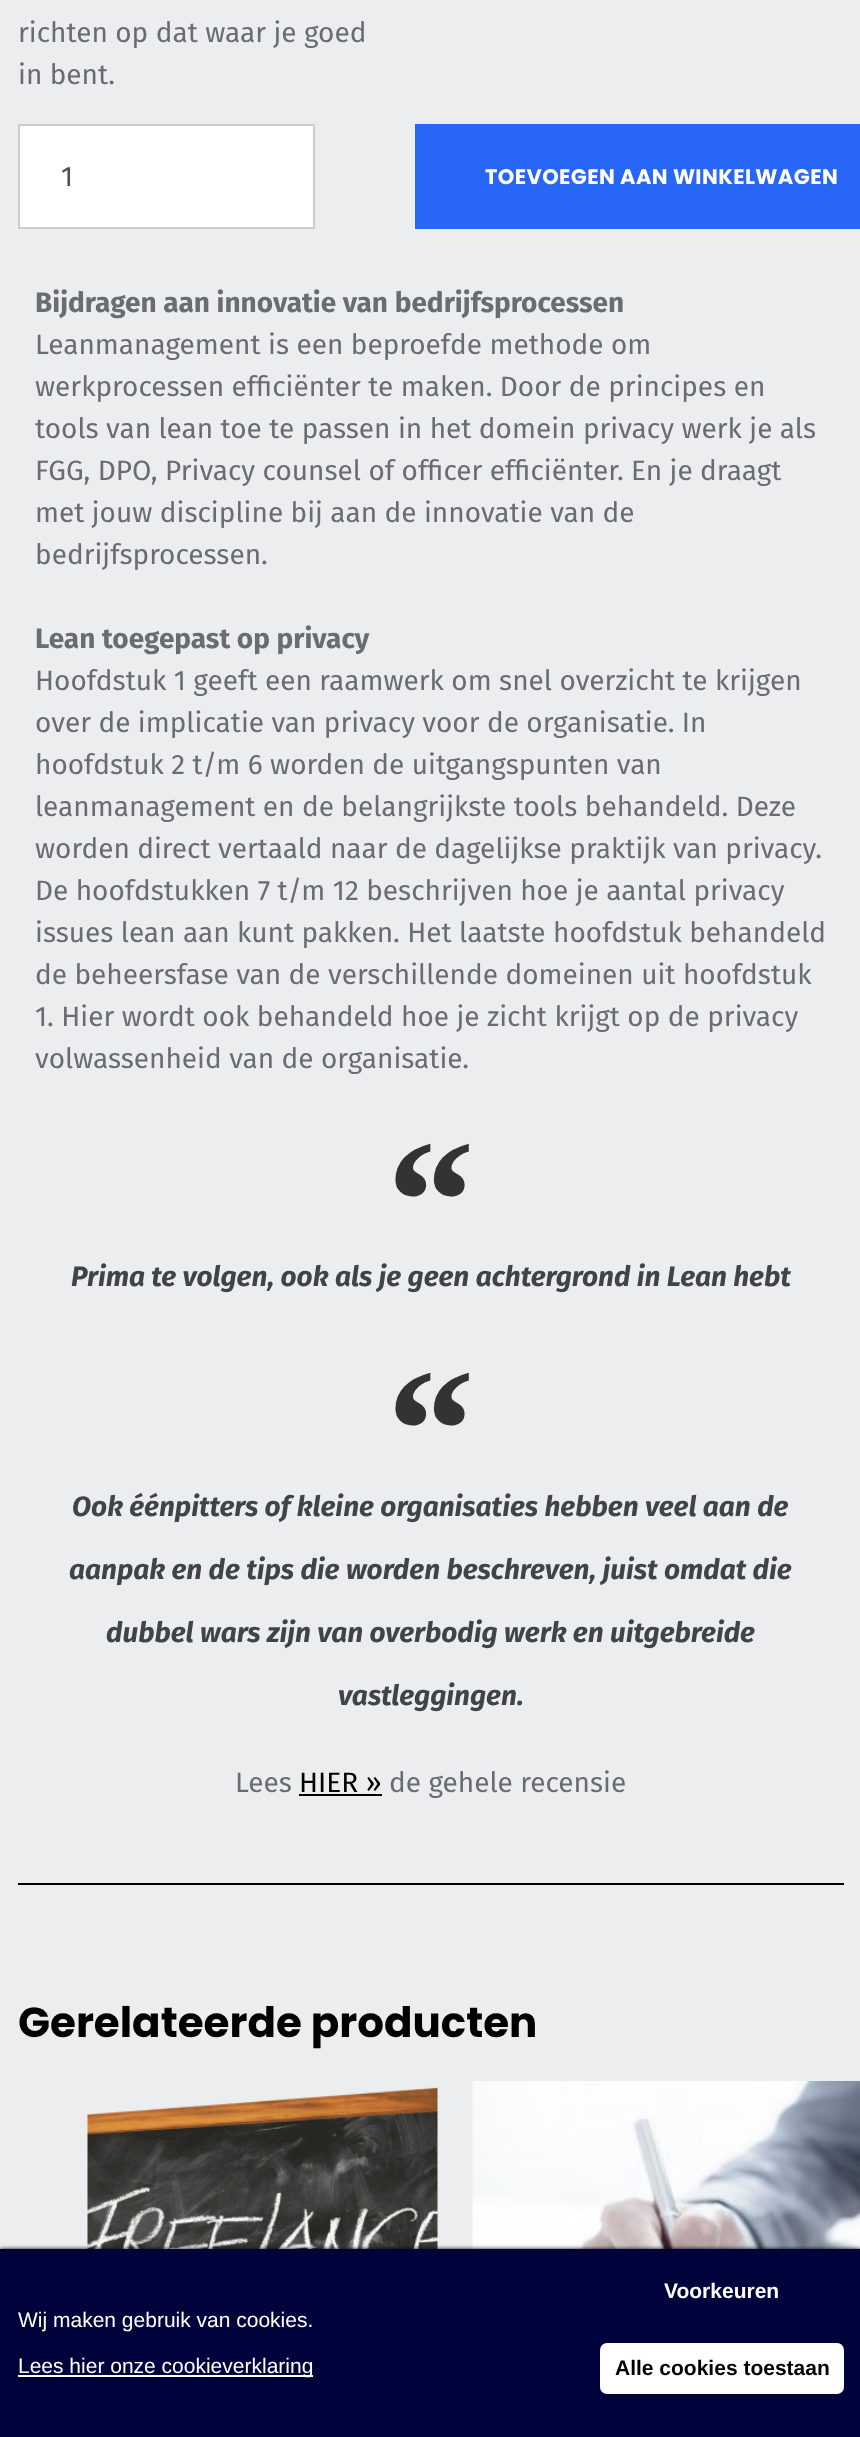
<?xml version="1.0" encoding="UTF-8"?>
<svg xmlns="http://www.w3.org/2000/svg" width="860" height="2437">
    <defs>
        <filter id="blur1" x="-50%" y="-200%" width="200%" height="500%"><feGaussianBlur stdDeviation="2"/></filter>
    </defs>
    <rect width="100%" height="100%" fill="#ECEDEE"/>
    <text font-family="Fira Sans" font-size="28" fill="#676D70">
        <tspan x="18" y="42">richten op dat waar je goed</tspan>
        <tspan x="18" y="84">in bent.</tspan>
    </text>
    <rect x="19" y="125" width="295" height="103" fill="#FFFFFF" stroke="#CCCCCC" stroke-width="2"/>
    <text x="61" y="186" font-family="Fira Sans" font-size="28" letter-spacing="0.4" fill="#495057">1</text>
    <rect x="415" y="124" width="445" height="105" fill="#2766F6"/>
    <text x="485" y="184" font-family="Poppins" font-size="21" font-weight="700" letter-spacing="0.4" fill="#FFFFFF">TOEVOEGEN AAN WINKELWAGEN</text>
    <text x="35" y="312" font-family="Fira Sans" font-size="28" font-weight="700" fill="#676D70">Bijdragen aan innovatie van bedrijfsprocessen</text>
    <text font-family="Fira Sans" font-size="28" fill="#676D70">
        <tspan x="35" y="354">Leanmanagement is een beproefde methode om</tspan>
        <tspan x="35" y="396">werkprocessen efficiënter te maken. Door de principes en</tspan>
        <tspan x="35" y="438">tools van lean toe te passen in het domein privacy werk je als</tspan>
        <tspan x="35" y="480">FGG, DPO, Privacy counsel of officer efficiënter. En je draagt</tspan>
        <tspan x="35" y="522">met jouw discipline bij aan de innovatie van de</tspan>
        <tspan x="35" y="564">bedrijfsprocessen.</tspan>
    </text>
    <text x="35" y="648" font-family="Fira Sans" font-size="28" font-weight="700" fill="#676D70">Lean toegepast op privacy</text>
    <text font-family="Fira Sans" font-size="28" fill="#676D70">
        <tspan x="35" y="690">Hoofdstuk 1 geeft een raamwerk om snel overzicht te krijgen</tspan>
        <tspan x="35" y="732">over de implicatie van privacy voor de organisatie. In</tspan>
        <tspan x="35" y="774">hoofdstuk 2 t/m 6 worden de uitgangspunten van</tspan>
        <tspan x="35" y="816">leanmanagement en de belangrijkste tools behandeld. Deze</tspan>
        <tspan x="35" y="858">worden direct vertaald naar de dagelijkse praktijk van privacy.</tspan>
        <tspan x="35" y="900">De hoofdstukken 7 t/m 12 beschrijven hoe je aantal privacy</tspan>
        <tspan x="35" y="942">issues lean aan kunt pakken. Het laatste hoofdstuk behandeld</tspan>
        <tspan x="35" y="984">de beheersfase van de verschillende domeinen uit hoofdstuk</tspan>
        <tspan x="35" y="1026">1. Hier wordt ook behandeld hoe je zicht krijgt op de privacy</tspan>
        <tspan x="35" y="1068">volwassenheid van de organisatie.</tspan>
    </text>
    <text x="387" y="1260" font-family="Liberation Serif" font-size="175" font-weight="700" fill="#333333">“</text>
    <text x="71" y="1286" font-family="Fira Sans" font-size="28" font-weight="700" font-style="italic" fill="#3F444B">Prima te volgen, ook als je geen achtergrond in Lean hebt</text>
    <text x="387" y="1489" font-family="Liberation Serif" font-size="175" font-weight="700" fill="#333333">“</text>
    <text x="72" y="1516" font-family="Fira Sans" font-size="28" font-weight="700" font-style="italic" fill="#3F444B">Ook éénpitters of kleine organisaties hebben veel aan de</text>
    <text x="69" y="1579" font-family="Fira Sans" font-size="28" font-weight="700" font-style="italic" fill="#3F444B">aanpak en de tips die worden beschreven, juist omdat die</text>
    <text x="106" y="1642" font-family="Fira Sans" font-size="28" font-weight="700" font-style="italic" fill="#3F444B">dubbel wars zijn van overbodig werk en uitgebreide</text>
    <text x="338" y="1705" font-family="Fira Sans" font-size="28" font-weight="700" font-style="italic" fill="#3F444B">vastleggingen.</text>
    <text x="235" y="1792" font-family="Fira Sans" font-size="28" fill="#676D70">Lees</text>
    <text x="299" y="1792" font-family="Fira Sans" font-size="28" fill="#000000">HIER »</text>
    <rect x="299" y="1794" width="83" height="2" fill="#000000"/>
    <text x="389" y="1792" font-family="Fira Sans" font-size="28" fill="#676D70">de gehele recensie</text>
    <rect x="18" y="1883" width="826" height="2" fill="#000000"/>
    <text x="18" y="2037" font-family="Poppins" font-size="42" font-weight="700" fill="#000000">Gerelateerde producten</text>
    <image x="87" y="2087" width="351" height="162" href="img_01.png"/>
    <image x="472" y="2081" width="388" height="168" href="img_02.png"/>
    <rect x="0" y="2249" width="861" height="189" fill="#000000" filter="url(#blur1)"/>
    <rect x="0" y="2249" width="860" height="188" fill="#00023B"/>
    <text x="18" y="2327" font-family="Liberation Sans" font-size="21" fill="#FFFFFF">Wij maken gebruik van cookies.</text>
    <rect x="18" y="2375" width="295" height="2" fill="#FFFFFF"/>
    <text x="18" y="2373" font-family="Liberation Sans" font-size="21" fill="#FFFFFF">Lees hier onze cookieverklaring</text>
    <text x="664" y="2298" font-family="Liberation Sans" font-size="21" font-weight="700" fill="#FFFFFF">Voorkeuren</text>
    <rect x="600" y="2343" width="244" height="51" rx="7" fill="#FFFFFF"/>
    <text x="615" y="2375" font-family="Liberation Sans" font-size="21" font-weight="700" fill="#000000">Alle cookies toestaan</text>
</svg>
